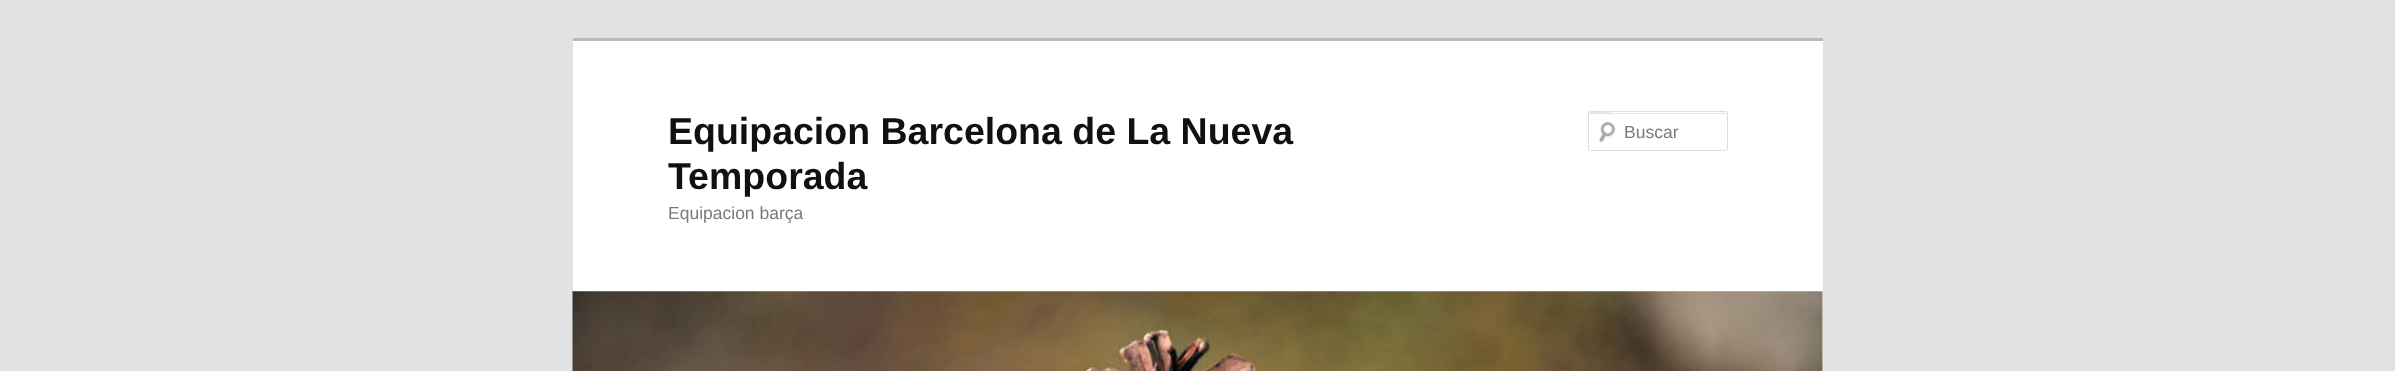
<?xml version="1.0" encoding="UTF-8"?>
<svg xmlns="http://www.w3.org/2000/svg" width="2395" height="371">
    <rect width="100%" height="100%" fill="#E2E2E2"/>
    <rect x="573" y="41" width="1250" height="330" fill="#FFFFFF"/>
    <rect x="573" y="38" width="1250" height="3" fill="#BBBBBB"/>
    <text font-family="Liberation Sans" font-size="37.5" font-weight="700" fill="#111111">
        <tspan x="668" y="144">Equipacion Barcelona de La Nueva</tspan>
        <tspan x="668" y="189">Temporada</tspan>
    </text>
    <text x="668" y="219" font-family="Liberation Sans" font-size="17.5" fill="#7A7A7A">Equipacion barça</text>
    <image x="1598" y="121" width="18" height="22" href="img_01.png"/>
    <path d="M 1590 114 H 1725 C 1726 114 1726 114 1726 115 V 113 H 1612 C 1612 113 1589 107 1589 115 C 1589 114 1589 114 1590 114 Z" fill="#E6E6E6"/>
    <rect x="1588.5" y="111.5" width="139" height="39" rx="2" fill="none" stroke="#DDDDDD"/>
    <text x="1624" y="138" font-family="Liberation Sans" font-size="17.5" fill="#7A7A7A">Buscar</text>
    <image x="572" y="291" width="1251" height="80" href="img_02.png"/>
</svg>
